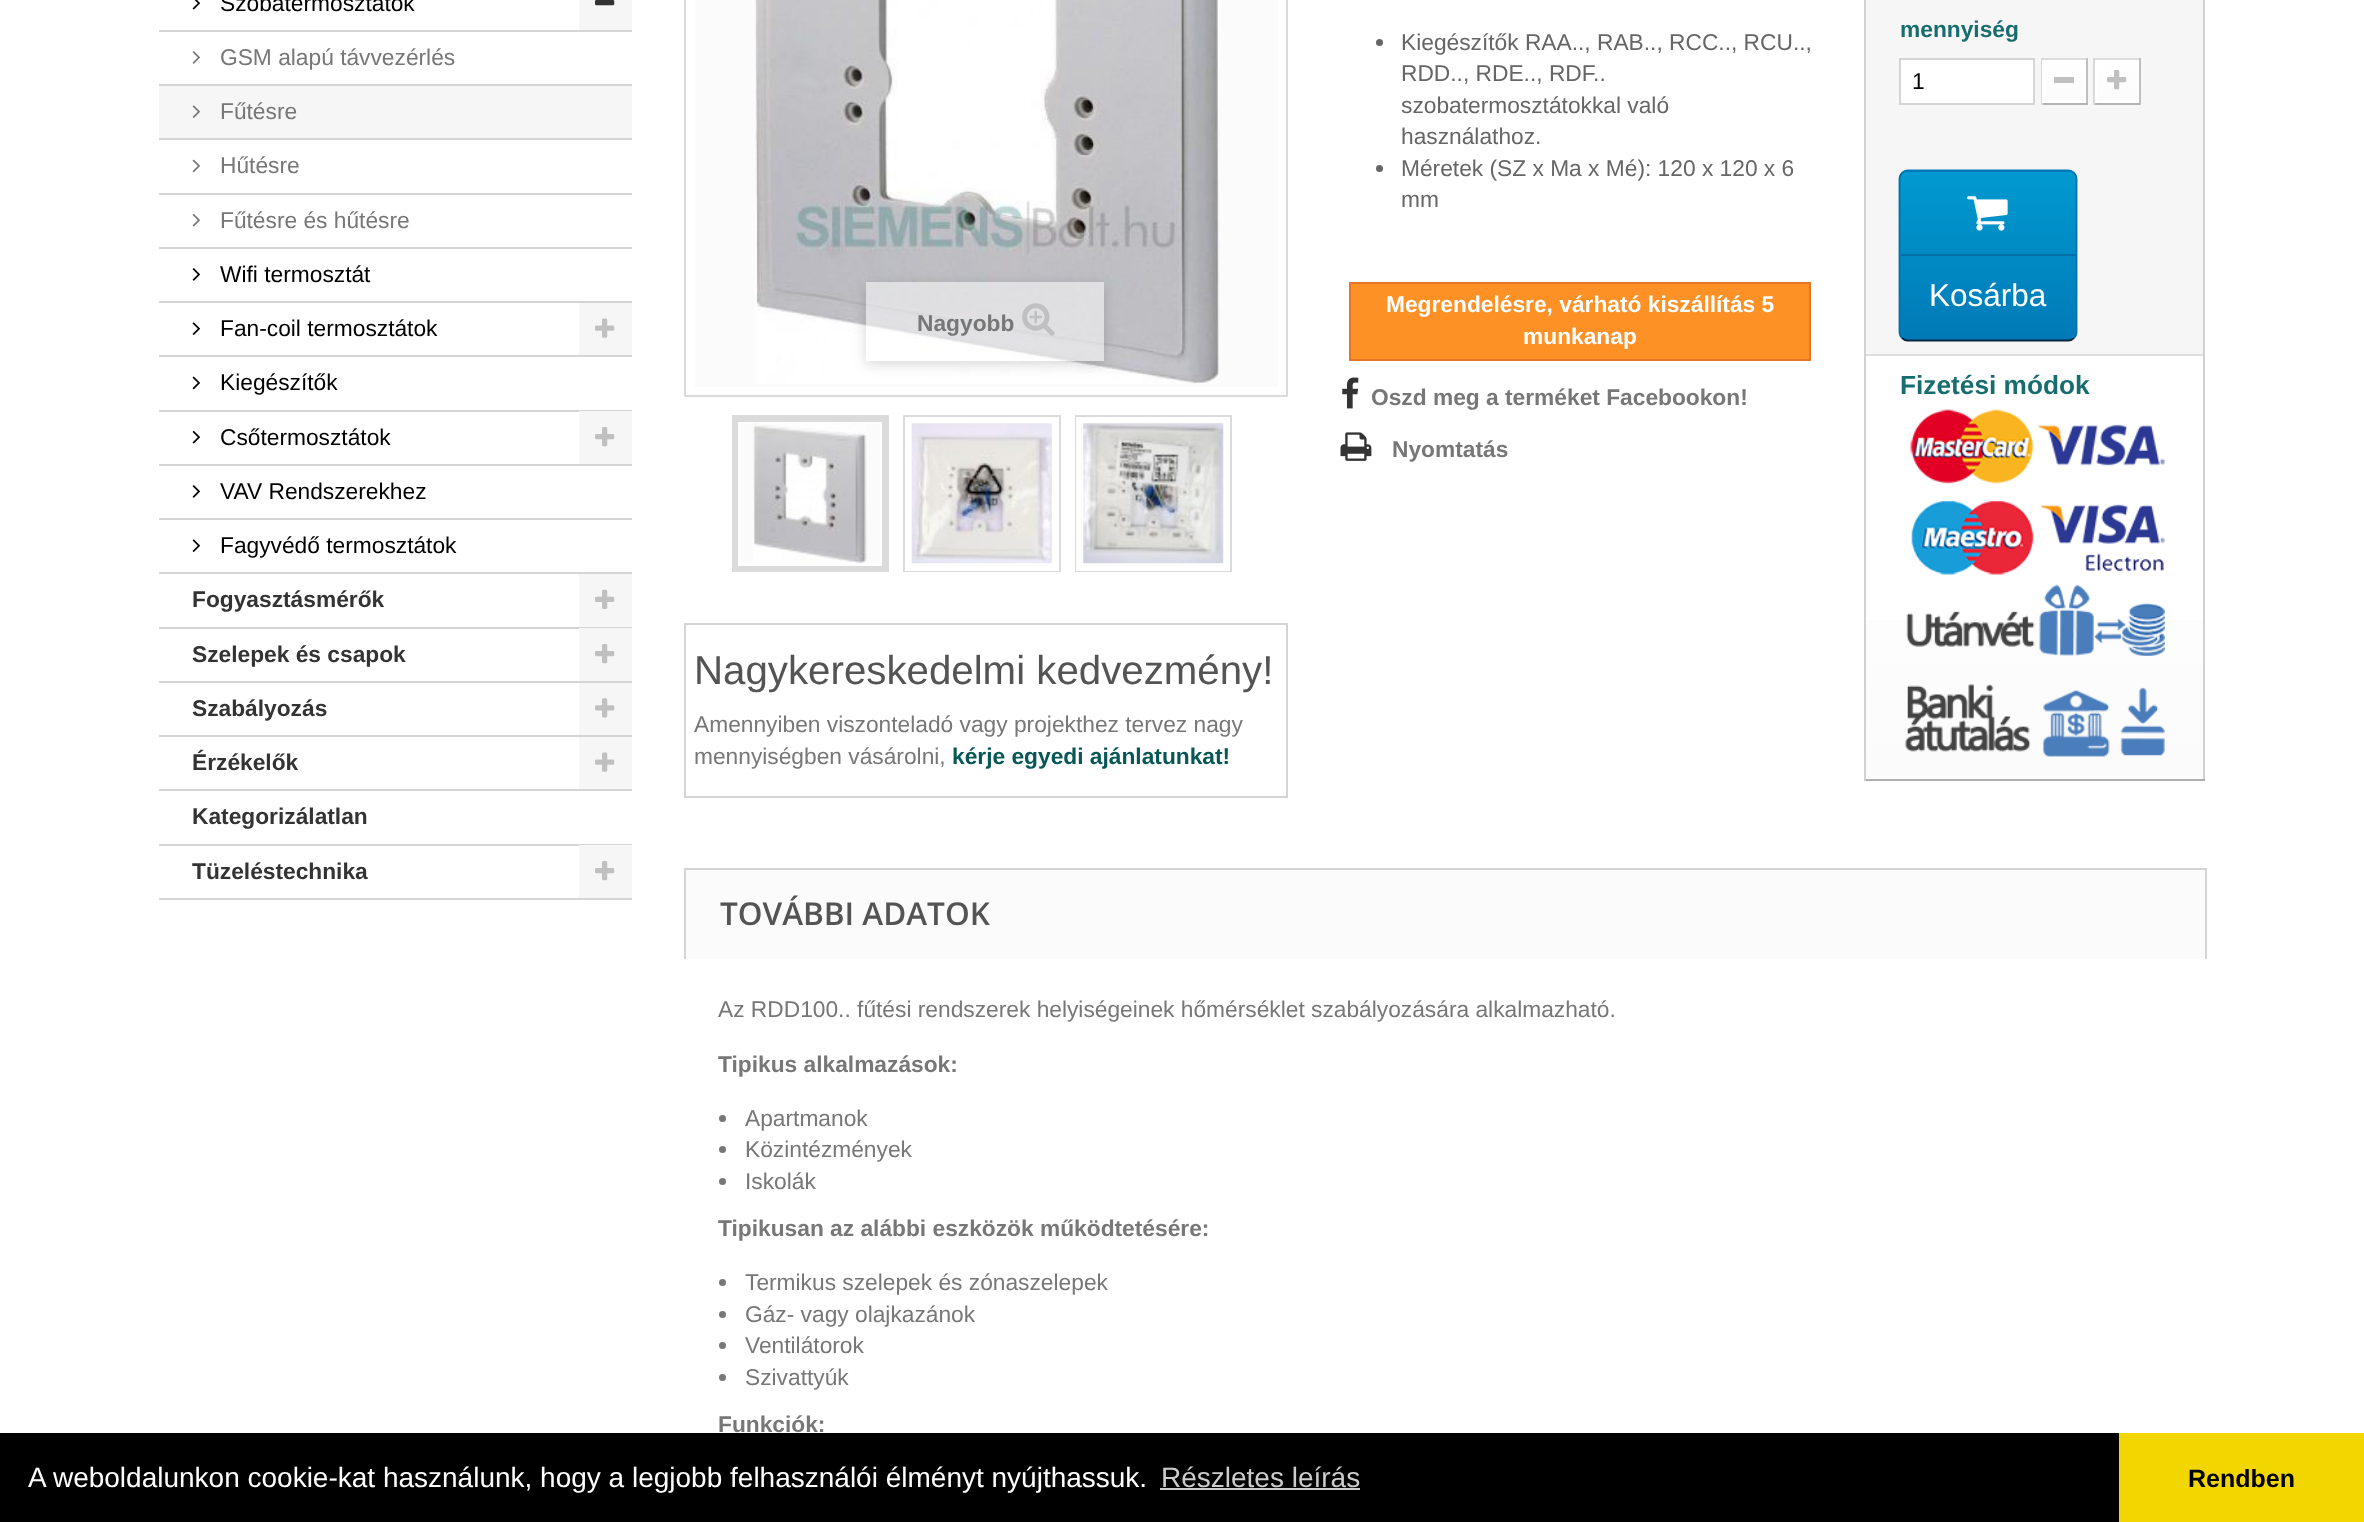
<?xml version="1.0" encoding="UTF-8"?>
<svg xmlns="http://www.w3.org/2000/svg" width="2364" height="1522">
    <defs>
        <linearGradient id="g1" gradientUnits="userSpaceOnUse" x1="2064" y1="61" x2="2064" y2="102"><stop offset="0" stop-color="#FFFFFF"/><stop offset="1" stop-color="#FBFBFB"/></linearGradient>
        <linearGradient id="g2" gradientUnits="userSpaceOnUse" x1="2117" y1="61" x2="2117" y2="102"><stop offset="0" stop-color="#FFFFFF"/><stop offset="1" stop-color="#FBFBFB"/></linearGradient>
        <clipPath id="clip1"><rect x="1899" y="170" width="178" height="171" rx="9"/></clipPath>
        <linearGradient id="g3" gradientUnits="userSpaceOnUse" x1="1988" y1="3.5" x2="1988" y2="172"><stop offset="0" stop-color="#009AD0"/><stop offset="1" stop-color="#007AB7"/></linearGradient>
        <linearGradient id="g4" gradientUnits="userSpaceOnUse" x1="1988" y1="172" x2="1988" y2="340"><stop offset="0" stop-color="#009AD0"/><stop offset="1" stop-color="#007AB7"/></linearGradient>
        <linearGradient id="g5" gradientUnits="userSpaceOnUse" x1="2034" y1="355" x2="2034" y2="779"><stop offset="0" stop-color="#FFFFFF"/><stop offset="1" stop-color="#FBFBFB"/></linearGradient>
        <clipPath id="clip2"><path d="M 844 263 H 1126 V 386 H 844 Z M 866 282 H 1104 V 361 H 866 Z" clip-rule="evenodd"/></clipPath>
        <filter id="blur1" x="-50%" y="-200%" width="200%" height="500%"><feGaussianBlur stdDeviation="7"/></filter>
    </defs>
    <rect width="100%" height="100%" fill="#FFFFFF"/>
    <rect x="159" y="30" width="473" height="2" fill="#D6D4D4"/>
    <image x="192" y="0" width="8" height="10" href="img_01.png"/>
    <text x="220" y="11" font-family="Liberation Sans" font-size="22.75" fill="#000000">Szobatermosztátok</text>
    <rect x="579" y="0" width="53" height="30" fill="#F6F6F6"/>
    <image x="595" y="0" width="20" height="6" href="img_02.png"/>
    <rect x="159" y="84" width="473" height="2" fill="#D6D4D4"/>
    <image x="192" y="51" width="8" height="13" href="img_03.png"/>
    <text x="220" y="65" font-family="Liberation Sans" font-size="22.75" fill="#777777">GSM alapú távvezérlés</text>
    <rect x="159" y="86" width="473" height="52" fill="#F6F6F6"/>
    <rect x="159" y="138" width="473" height="2" fill="#D6D4D4"/>
    <image x="192" y="105" width="8" height="13" href="img_04.png"/>
    <text x="220" y="119" font-family="Liberation Sans" font-size="22.75" fill="#777777">Fűtésre</text>
    <rect x="159" y="193" width="473" height="2" fill="#D6D4D4"/>
    <image x="192" y="159" width="8" height="14" href="img_05.png"/>
    <text x="220" y="173" font-family="Liberation Sans" font-size="22.75" fill="#777777">Hűtésre</text>
    <rect x="159" y="247" width="473" height="2" fill="#D6D4D4"/>
    <image x="192" y="213" width="8" height="14" href="img_06.png"/>
    <text x="220" y="228" font-family="Liberation Sans" font-size="22.75" fill="#777777">Fűtésre és hűtésre</text>
    <rect x="159" y="301" width="473" height="2" fill="#D6D4D4"/>
    <image x="192" y="268" width="8" height="13" href="img_07.png"/>
    <text x="220" y="282" font-family="Liberation Sans" font-size="22.75" fill="#000000">Wifi termosztát</text>
    <rect x="159" y="355" width="473" height="2" fill="#D6D4D4"/>
    <image x="192" y="322" width="8" height="13" href="img_08.png"/>
    <text x="220" y="336" font-family="Liberation Sans" font-size="22.75" fill="#000000">Fan-coil termosztátok</text>
    <rect x="579" y="303" width="53" height="52" fill="#F6F6F6"/>
    <image x="595" y="318" width="20" height="20" href="img_09.png"/>
    <rect x="159" y="410" width="473" height="2" fill="#D6D4D4"/>
    <image x="192" y="376" width="8" height="14" href="img_10.png"/>
    <text x="220" y="390" font-family="Liberation Sans" font-size="22.75" fill="#000000">Kiegészítők</text>
    <rect x="159" y="464" width="473" height="2" fill="#D6D4D4"/>
    <image x="192" y="430" width="8" height="14" href="img_11.png"/>
    <text x="220" y="445" font-family="Liberation Sans" font-size="22.75" fill="#000000">Csőtermosztátok</text>
    <rect x="579" y="411" width="53" height="53" fill="#F6F6F6"/>
    <image x="595" y="427" width="20" height="20" href="img_12.png"/>
    <rect x="159" y="518" width="473" height="2" fill="#D6D4D4"/>
    <image x="192" y="485" width="8" height="13" href="img_07.png"/>
    <text x="220" y="499" font-family="Liberation Sans" font-size="22.75" fill="#000000">VAV Rendszerekhez</text>
    <rect x="159" y="572" width="473" height="2" fill="#D6D4D4"/>
    <image x="192" y="539" width="8" height="13" href="img_08.png"/>
    <text x="220" y="553" font-family="Liberation Sans" font-size="22.75" fill="#000000">Fagyvédő termosztátok</text>
    <rect x="159" y="627" width="473" height="2" fill="#D6D4D4"/>
    <text x="192" y="607" font-family="Liberation Sans" font-size="22.75" font-weight="700" fill="#333333">Fogyasztásmérők</text>
    <rect x="579" y="574" width="53" height="53" fill="#F6F6F6"/>
    <image x="595" y="589" width="20" height="20" href="img_13.png"/>
    <rect x="159" y="681" width="473" height="2" fill="#D6D4D4"/>
    <text x="192" y="662" font-family="Liberation Sans" font-size="22.75" font-weight="700" fill="#333333">Szelepek és csapok</text>
    <rect x="579" y="628" width="53" height="53" fill="#F6F6F6"/>
    <image x="595" y="644" width="20" height="20" href="img_12.png"/>
    <rect x="159" y="735" width="473" height="2" fill="#D6D4D4"/>
    <text x="192" y="716" font-family="Liberation Sans" font-size="22.75" font-weight="700" fill="#333333">Szabályozás</text>
    <rect x="579" y="683" width="53" height="52" fill="#F6F6F6"/>
    <image x="595" y="698" width="20" height="20" href="img_14.png"/>
    <rect x="159" y="789" width="473" height="2" fill="#D6D4D4"/>
    <text x="192" y="770" font-family="Liberation Sans" font-size="22.75" font-weight="700" fill="#333333">Érzékelők</text>
    <rect x="579" y="737" width="53" height="52" fill="#F6F6F6"/>
    <image x="595" y="752" width="20" height="20" href="img_09.png"/>
    <rect x="159" y="844" width="473" height="2" fill="#D6D4D4"/>
    <text x="192" y="824" font-family="Liberation Sans" font-size="22.75" font-weight="700" fill="#333333">Kategorizálatlan</text>
    <rect x="159" y="898" width="473" height="2" fill="#D6D4D4"/>
    <text x="192" y="879" font-family="Liberation Sans" font-size="22.75" font-weight="700" fill="#333333">Tüzeléstechnika</text>
    <rect x="579" y="845" width="53" height="53" fill="#F6F6F6"/>
    <image x="595" y="861" width="20" height="20" href="img_12.png"/>
    <circle cx="1379.5" cy="42.5" r="3.5" fill="#666666"/>
    <text font-family="Liberation Sans" font-size="22.75" fill="#666666">
        <tspan x="1401" y="50">Kiegészítők RAA.., RAB.., RCC.., RCU..,</tspan>
        <tspan x="1401" y="81">RDD.., RDE.., RDF..</tspan>
        <tspan x="1401" y="113">szobatermosztátokkal való</tspan>
        <tspan x="1401" y="144">használathoz.</tspan>
    </text>
    <circle cx="1379.5" cy="168.5" r="3.5" fill="#666666"/>
    <text font-family="Liberation Sans" font-size="22.75" fill="#666666">
        <tspan x="1401" y="176">Méretek (SZ x Ma x Mé): 120 x 120 x 6</tspan>
        <tspan x="1401" y="207">mm</tspan>
    </text>
    <rect x="1350" y="283" width="460" height="77" fill="#FE9126" stroke="#E4752B" stroke-width="2"/>
    <text x="1386" y="312" font-family="Liberation Sans" font-size="22.75" font-weight="700" fill="#FFFFFF">Megrendelésre, várható kiszállítás 5</text>
    <text x="1523" y="344" font-family="Liberation Sans" font-size="22.75" font-weight="700" fill="#FFFFFF">munkanap</text>
    <image x="1342" y="377" width="17" height="32" href="img_15.png"/>
    <text x="1371" y="405" font-family="Liberation Sans" font-size="22.75" font-weight="700" fill="#777777">Oszd meg a terméket Facebookon!</text>
    <image x="1340" y="432" width="32" height="29" href="img_16.png"/>
    <text x="1392" y="457" font-family="Liberation Sans" font-size="22.75" font-weight="700" fill="#777777">Nyomtatás</text>
    <rect x="1866" y="0" width="337" height="354" fill="#F6F6F6"/>
    <rect x="2203" y="0" width="2" height="781" fill="#D2D0D0"/>
    <rect x="1864" y="779" width="341" height="2" fill="#B0AFAF"/>
    <rect x="1864" y="0" width="2" height="781" fill="#D2D0D0"/>
    <text x="1900" y="37" font-family="Liberation Sans" font-size="22.75" font-weight="700" fill="#176D6D">mennyiség</text>
    <rect x="1900" y="59" width="134" height="45" fill="#FFFFFF" stroke="#D6D4D4" stroke-width="2"/>
    <text x="1912" y="89" font-family="Liberation Sans" font-size="22.75" fill="#000000">1</text>
    <rect x="2041" y="58" width="47" height="2" fill="#DEDCDC"/>
    <rect x="2086" y="58" width="2" height="47" fill="#C1BFBF"/>
    <rect x="2041" y="103" width="47" height="2" fill="#B5B4B4"/>
    <rect x="2041" y="58" width="2" height="47" fill="#DAD8D8"/>
    <rect x="2044" y="62" width="40" height="39" fill="url(#g1)"/>
    <rect x="2043" y="61" width="42" height="41" fill="none" stroke="#FFFFFF" stroke-width="2"/>
    <rect x="2054" y="77" width="20" height="6" fill="#C0C0C0"/>
    <rect x="2093" y="58" width="47" height="2" fill="#DEDCDC"/>
    <rect x="2139" y="58" width="2" height="47" fill="#C1BFBF"/>
    <rect x="2093" y="103" width="47" height="2" fill="#B5B4B4"/>
    <rect x="2093" y="58" width="2" height="47" fill="#DAD8D8"/>
    <rect x="2097" y="62" width="40" height="39" fill="url(#g2)"/>
    <rect x="2096" y="61" width="42" height="41" fill="none" stroke="#FFFFFF" stroke-width="2"/>
    <image x="2107" y="70" width="20" height="20" href="img_17.png"/>
    <g clip-path="url(#clip1)">
        <rect x="1899" y="170" width="178" height="2" fill="url(#g3)"/>
        <rect x="1899" y="172" width="178" height="168" fill="url(#g4)"/>
    </g>
    <path d="M 1902 173 C 1903.5 171.5 1905.5 170.5 1907.5 170.5 H 2068.5 C 2070.5 170.5 2072.5 171.5 2074 173" fill="none" stroke="#0079B6" stroke-width="1.8"/>
    <path d="M 2074 173 C 2075.5 174.5 2076.5 176.5 2076.5 178.5 V 332.5 C 2076.5 334.5 2075.5 336.5 2074 338" fill="none" stroke="#006FA8" stroke-width="1.8"/>
    <path d="M 2074 338 C 2072.5 339.5 2070.5 340.5 2068.5 340.5 H 1907.5 C 1905.5 340.5 1903.5 339.5 1902 338" fill="none" stroke="#012740" stroke-width="1.8"/>
    <path d="M 1902 338 C 1900.5 336.5 1899.5 334.5 1899.5 332.5 V 178.5 C 1899.5 176.5 1900.5 174.5 1902 173" fill="none" stroke="#006FA8" stroke-width="1.8"/>
    <image x="1967" y="196" width="41" height="35" href="img_18.png"/>
    <rect x="1901" y="254" width="175" height="2" fill="#006FA8"/>
    <text x="1929" y="306" font-family="Liberation Sans" font-size="31.5" fill="#FFFFFF">Kosárba</text>
    <rect x="1866" y="620" width="337" height="159" fill="url(#g5)"/>
    <rect x="1866" y="354" width="337" height="2" fill="#DFDEDE"/>
    <text x="1900" y="394" font-family="Liberation Sans" font-size="26.25" font-weight="700" fill="#176D6D">Fizetési módok</text>
    <image x="1905" y="409" width="260" height="348" href="img_19.png"/>
    <rect x="685" y="-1" width="602" height="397" fill="none" stroke="#DBDBDB" stroke-width="2"/>
    <rect x="695" y="0" width="583" height="387" fill="#FBFBFB"/>
    <image x="755" y="0" width="465" height="384" href="img_20.png"/>
    <g clip-path="url(#clip2)">
        <rect x="866" y="285" width="238" height="79" fill="#000000" fill-opacity="0.16" filter="url(#blur1)"/>
    </g>
    <rect x="866" y="282" width="238" height="79" fill="#FFFFFF" fill-opacity="0.5"/>
    <text x="917" y="331" font-family="Liberation Sans" font-size="22.75" font-weight="700" fill="#777777">Nagyobb</text>
    <image x="1022" y="303" width="33" height="33" href="img_21.png"/>
    <rect x="733" y="416" width="155" height="155" fill="none" stroke="#DBDBDB" stroke-width="2"/>
    <rect x="735.5" y="419.5" width="149" height="149" fill="#FBFBFB" stroke="#DBDBDB" stroke-width="5"/>
    <rect x="740" y="423" width="141" height="141" fill="none" stroke="#FFFFFF" stroke-width="2"/>
    <image x="753" y="423" width="114" height="141" href="img_22.png"/>
    <rect x="904" y="416" width="156" height="155" fill="none" stroke="#DBDBDB" stroke-width="2"/>
    <rect x="910" y="424" width="144" height="142" fill="#FBFBFB"/>
    <rect x="907.5" y="419.5" width="149" height="149" fill="none" stroke="#FFFFFF" stroke-width="5"/>
    <rect x="911" y="423" width="142" height="141" fill="none" stroke="#FFFFFF" stroke-width="2"/>
    <image x="911" y="423" width="141" height="141" href="img_23.png"/>
    <rect x="1076" y="416" width="155" height="155" fill="none" stroke="#DBDBDB" stroke-width="2"/>
    <rect x="1078.5" y="419.5" width="149" height="149" fill="#FBFBFB" stroke="#FFFFFF" stroke-width="5"/>
    <rect x="1083" y="423" width="141" height="141" fill="none" stroke="#FFFFFF" stroke-width="2"/>
    <image x="1083" y="423" width="141" height="141" href="img_24.png"/>
    <rect x="685" y="624" width="602" height="173" fill="none" stroke="#D6D4D4" stroke-width="2"/>
    <text x="694" y="684" font-family="Liberation Sans" font-size="40.25" fill="#555454">Nagykereskedelmi kedvezmény!</text>
    <text font-family="Liberation Sans" font-size="22.75" fill="#777777">
        <tspan x="694" y="732">Amennyiben viszonteladó vagy projekthez tervez nagy</tspan>
        <tspan x="694" y="764">mennyiségben vásárolni,</tspan>
    </text>
    <text x="952" y="764" font-family="Liberation Sans" font-size="22.75" font-weight="700" fill="#085757">kérje egyedi ajánlatunkat!</text>
    <rect x="686" y="870" width="1519" height="89" fill="#FBFBFB"/>
    <rect x="684" y="868" width="1523" height="2" fill="#D6D4D4"/>
    <rect x="2205" y="868" width="2" height="91" fill="#D6D4D4"/>
    <rect x="684" y="868" width="2" height="91" fill="#D6D4D4"/>
    <text x="720" y="925" font-family="Open Sans" font-size="31.5" font-weight="600" fill="#555454">TOVÁBBI ADATOK</text>
    <text x="718" y="1017" font-family="Liberation Sans" font-size="22.75" fill="#777777">Az RDD100.. fűtési rendszerek helyiségeinek hőmérséklet szabályozására alkalmazható.</text>
    <text x="718" y="1072" font-family="Liberation Sans" font-size="22.75" font-weight="700" fill="#777777">Tipikus alkalmazások:</text>
    <circle cx="722.5" cy="1118.5" r="3.5" fill="#777777"/>
    <text x="745" y="1126" font-family="Liberation Sans" font-size="22.75" fill="#777777">Apartmanok</text>
    <circle cx="722.5" cy="1149.5" r="3.5" fill="#777777"/>
    <text x="745" y="1157" font-family="Liberation Sans" font-size="22.75" fill="#777777">Közintézmények</text>
    <circle cx="722.5" cy="1181.5" r="3.5" fill="#777777"/>
    <text x="745" y="1189" font-family="Liberation Sans" font-size="22.75" fill="#777777">Iskolák</text>
    <text x="718" y="1236" font-family="Liberation Sans" font-size="22.75" font-weight="700" fill="#777777">Tipikusan az alábbi eszközök működtetésére:</text>
    <circle cx="722.5" cy="1282.5" r="3.5" fill="#777777"/>
    <text x="745" y="1290" font-family="Liberation Sans" font-size="22.75" fill="#777777">Termikus szelepek és zónaszelepek</text>
    <circle cx="722.5" cy="1314.5" r="3.5" fill="#777777"/>
    <text x="745" y="1322" font-family="Liberation Sans" font-size="22.75" fill="#777777">Gáz- vagy olajkazánok</text>
    <circle cx="722.5" cy="1345.5" r="3.5" fill="#777777"/>
    <text x="745" y="1353" font-family="Liberation Sans" font-size="22.75" fill="#777777">Ventilátorok</text>
    <circle cx="722.5" cy="1377.5" r="3.5" fill="#777777"/>
    <text x="745" y="1385" font-family="Liberation Sans" font-size="22.75" fill="#777777">Szivattyúk</text>
    <text x="718" y="1432" font-family="Liberation Sans" font-size="22.75" font-weight="700" fill="#777777">Funkciók:</text>
    <rect x="0" y="1433" width="2119" height="89" fill="#000000"/>
    <text x="28" y="1487" font-family="Liberation Sans" font-size="28" fill="#FFFFFF">A weboldalunkon cookie-kat használunk, hogy a legjobb felhasználói élményt nyújthassuk.</text>
    <text x="1161" y="1487" font-family="Liberation Sans" font-size="28" fill="#CCCCCC">Részletes leírás</text>
    <rect x="1160" y="1488" width="200" height="2" fill="#CCCCCC"/>
    <rect x="2119" y="1433" width="245" height="89" fill="#F1D600"/>
    <text x="2188" y="1487" font-family="Liberation Sans" font-size="25" font-weight="700" fill="#000000">Rendben</text>
</svg>
